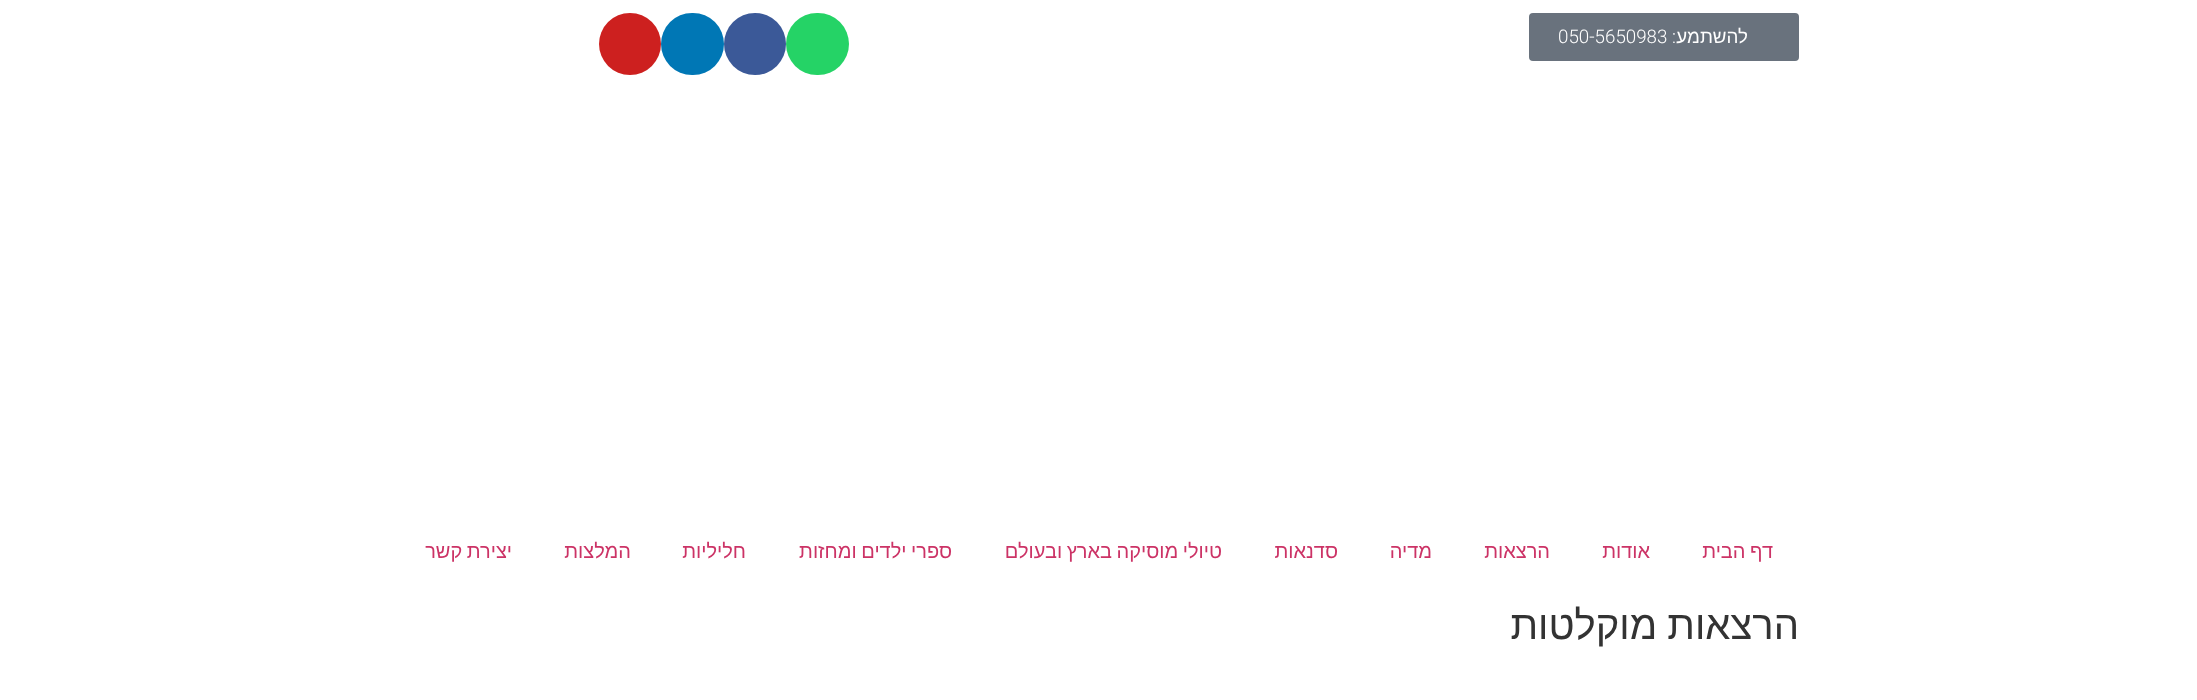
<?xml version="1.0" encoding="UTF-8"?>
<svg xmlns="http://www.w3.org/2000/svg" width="2197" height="700">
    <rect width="100%" height="100%" fill="#FFFFFF"/>
    <rect x="1529" y="13" width="270" height="48" rx="4" fill="#69727D"/>
    <text x="1748" y="43" font-family="Liberation Sans" font-size="18.75" direction="rtl" fill="#FFFFFF">להשתמע</text>
    <text x="1676" y="43" font-family="Roboto" font-size="18.75" font-weight="300" direction="rtl" fill="#FFFFFF">:</text>
    <text x="1558" y="43" font-family="Roboto" font-size="18.75" font-weight="300" fill="#FFFFFF">050-5650983</text>
    <rect x="786" y="13" width="63" height="62" rx="31" fill="#25D366"/>
    <circle cx="755" cy="44" r="31" fill="#3B5998"/>
    <rect x="661" y="13" width="63" height="62" rx="31" fill="#0077B5"/>
    <circle cx="630" cy="44" r="31" fill="#CD201F"/>
    <text x="1773" y="558" word-spacing="-1" font-family="Liberation Sans" font-size="20" direction="rtl" fill="#CC3366">דף הבית</text>
    <text x="1650" y="558" font-family="Liberation Sans" font-size="20" direction="rtl" fill="#CC3366">אודות</text>
    <text x="1550" y="558" font-family="Liberation Sans" font-size="20" direction="rtl" fill="#CC3366">הרצאות</text>
    <text x="1432" y="558" font-family="Liberation Sans" font-size="20" direction="rtl" fill="#CC3366">מדיה</text>
    <text x="1338" y="558" font-family="Liberation Sans" font-size="20" direction="rtl" fill="#CC3366">סדנאות</text>
    <text x="1222" y="558" word-spacing="-1" font-family="Liberation Sans" font-size="20" direction="rtl" fill="#CC3366">טיולי מוסיקה בארץ ובעולם</text>
    <text x="952" y="558" word-spacing="-1" font-family="Liberation Sans" font-size="20" direction="rtl" fill="#CC3366">ספרי ילדים ומחזות</text>
    <text x="746" y="558" font-family="Liberation Sans" font-size="20" direction="rtl" fill="#CC3366">חליליות</text>
    <text x="631" y="558" font-family="Liberation Sans" font-size="20" direction="rtl" fill="#CC3366">המלצות</text>
    <text x="512" y="558" word-spacing="-1" font-family="Liberation Sans" font-size="20" direction="rtl" fill="#CC3366">יצירת קשר</text>
    <text x="1799" y="639" word-spacing="-1" font-family="Liberation Sans" font-size="40" direction="rtl" fill="#333333">הרצאות מוקלטות</text>
</svg>
